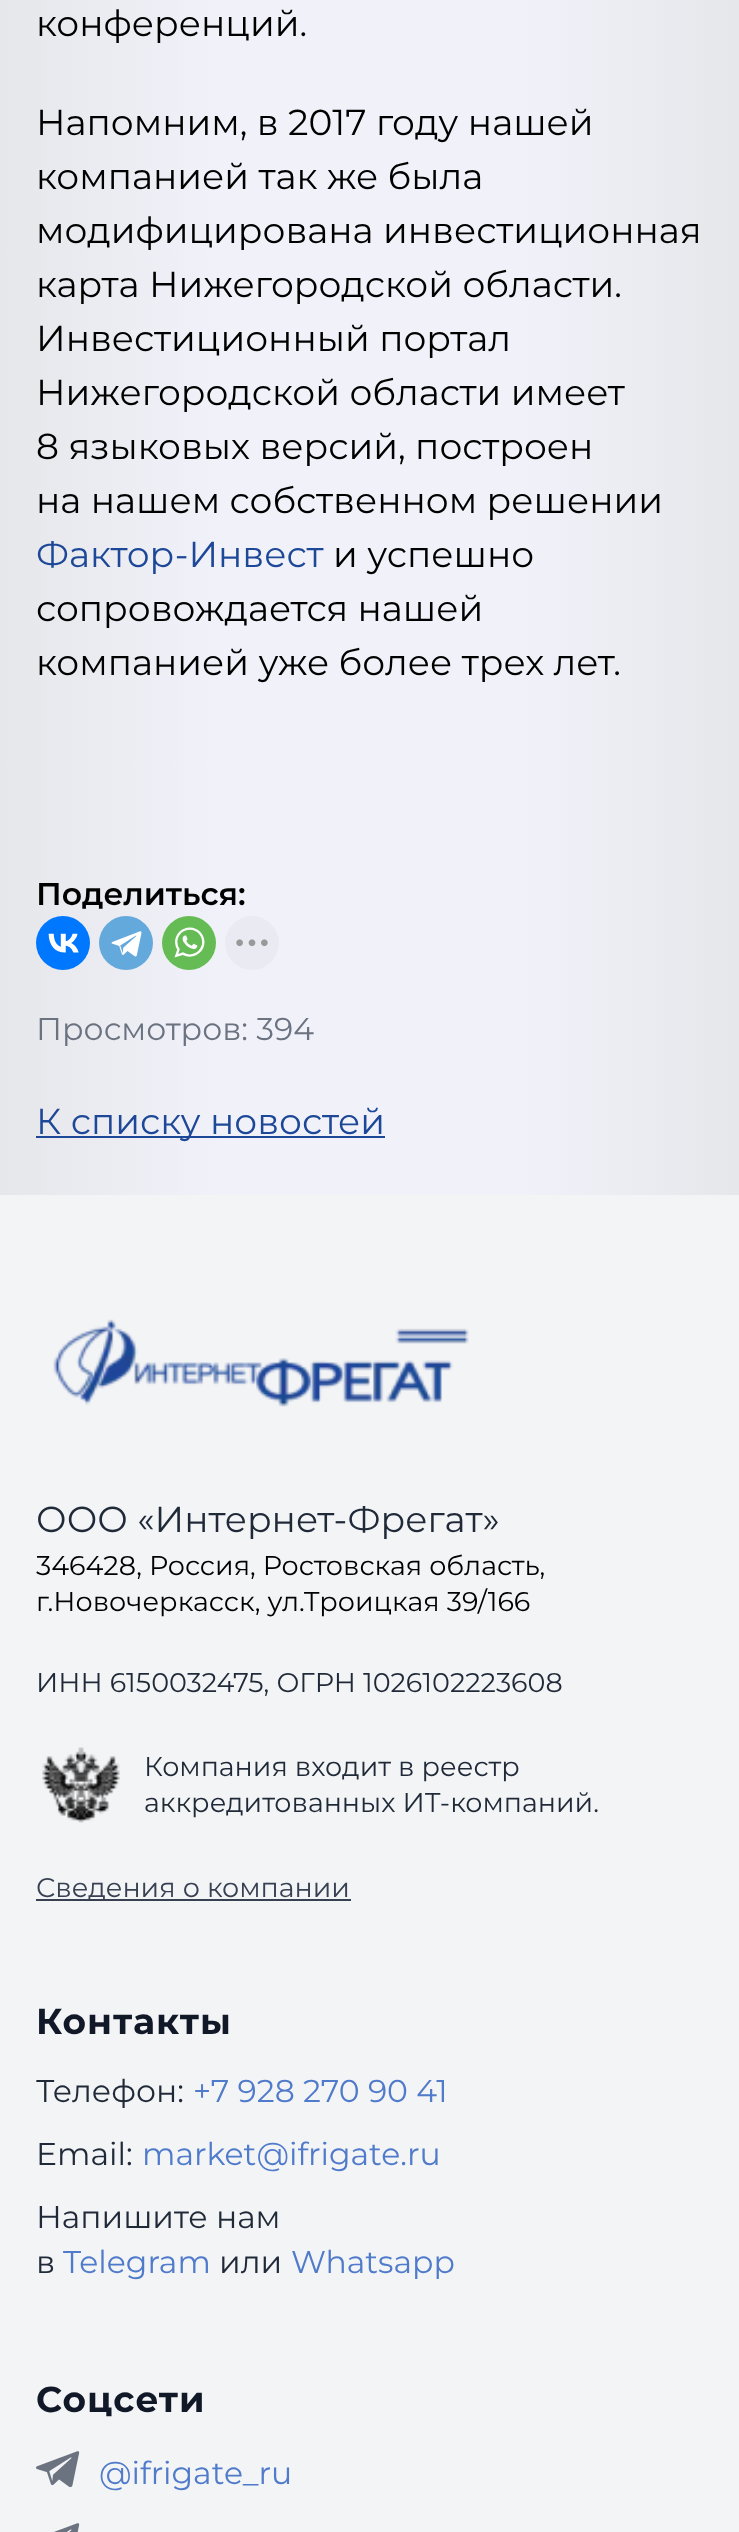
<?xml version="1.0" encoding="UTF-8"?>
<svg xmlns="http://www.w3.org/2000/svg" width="739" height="2532">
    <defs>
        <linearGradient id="g1" gradientUnits="userSpaceOnUse" x1="0" y1="-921" x2="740" y2="-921"><stop offset="0" stop-color="#E6E7EA"/><stop offset="0.3" stop-color="#F1F1FA"/><stop offset="0.7" stop-color="#F1F1FA"/><stop offset="1" stop-color="#E6E7EA"/></linearGradient>
    </defs>
    <rect width="100%" height="100%" fill="#FFFFFF"/>
    <rect x="0" y="0" width="739" height="1195" fill="url(#g1)"/>
    <text x="36" y="36" font-family="Montserrat" font-size="36" fill="#000000">конференций.</text>
    <text font-family="Montserrat" font-size="36" fill="#000000">
        <tspan x="36" y="135">Напомним, в 2017 году нашей</tspan>
        <tspan x="36" y="189">компанией так же была</tspan>
        <tspan x="36" y="243">модифицирована инвестиционная</tspan>
        <tspan x="36" y="297">карта Нижегородской области.</tspan>
        <tspan x="36" y="351">Инвестиционный портал</tspan>
        <tspan x="36" y="405">Нижегородской области имеет</tspan>
        <tspan x="36" y="459">8 языковых версий, построен</tspan>
        <tspan x="36" y="513">на нашем собственном решении</tspan>
    </text>
    <text x="36" y="567" font-family="Montserrat" font-size="36" fill="#1D4797">Фактор-Инвест</text>
    <text x="333" y="567" font-family="Montserrat" font-size="36" fill="#000000">и успешно</text>
    <text font-family="Montserrat" font-size="36" fill="#000000">
        <tspan x="36" y="621">сопровождается нашей</tspan>
        <tspan x="36" y="675">компанией уже более трех лет.</tspan>
    </text>
    <text x="36" y="905" font-family="Montserrat" font-size="31.5" font-weight="600" fill="#000000">Поделиться:</text>
    <circle cx="63" cy="943" r="27" fill="#0077FF"/>
    <image x="48" y="933" width="31" height="20" href="img_01.png"/>
    <circle cx="126" cy="943" r="27" fill="#64A9DC"/>
    <image x="111" y="931" width="31" height="26" href="img_02.png"/>
    <circle cx="189" cy="943" r="27" fill="#65BC54"/>
    <image x="174" y="927" width="31" height="31" href="img_03.png"/>
    <circle cx="252" cy="943" r="27" fill="#EAEAF3"/>
    <image x="236" y="939" width="32" height="8" href="img_04.png"/>
    <text x="36" y="1040" font-family="Montserrat" font-size="31.5" fill="#6B7280">Просмотров: 394</text>
    <rect x="36" y="1136" width="349" height="2" fill="#1D4797"/>
    <text x="36" y="1134" font-family="Montserrat" font-size="36" fill="#1D4797">К списку новостей</text>
    <rect x="0" y="1195" width="739" height="1337" fill="#F3F4F6"/>
    <image x="53" y="1319" width="416" height="88" href="img_05.png"/>
    <text x="36" y="1532" font-family="Montserrat" font-size="36" fill="#1F2937">ООО «Интернет-Фрегат»</text>
    <text font-family="Montserrat" font-size="27" fill="#000000">
        <tspan x="36" y="1575">346428, Россия, Ростовская область,</tspan>
        <tspan x="36" y="1611">г.Новочеркасск, ул.Троицкая 39/166</tspan>
    </text>
    <text x="36" y="1692" font-family="Montserrat" font-size="27" fill="#1F2937">ИНН 6150032475, ОГРН 1026102223608</text>
    <image x="42" y="1747" width="78" height="76" href="img_06.png"/>
    <text font-family="Montserrat" font-size="27" fill="#1F2937">
        <tspan x="144" y="1776">Компания входит в реестр</tspan>
        <tspan x="144" y="1812">аккредитованных ИТ-компаний.</tspan>
    </text>
    <rect x="36" y="1899" width="315" height="2" fill="#374151"/>
    <text x="36" y="1897" font-family="Montserrat" font-size="27" fill="#374151">Сведения о компании</text>
    <text x="36" y="2034" font-family="Montserrat" font-size="36" font-weight="700" letter-spacing="1" fill="#111827">Контакты</text>
    <text x="36" y="2102" font-family="Montserrat" font-size="31.5" fill="#1F2937">Телефон:</text>
    <text x="193" y="2102" font-family="Montserrat" font-size="31.5" fill="#507ACA">+7 928 270 90 41</text>
    <text x="36" y="2165" font-family="Montserrat" font-size="31.5" fill="#1F2937">Email:</text>
    <text x="142" y="2165" font-family="Montserrat" font-size="31.5" fill="#507ACA">market@ifrigate.ru</text>
    <text font-family="Montserrat" font-size="31.5" fill="#1F2937">
        <tspan x="36" y="2228">Напишите нам</tspan>
        <tspan x="36" y="2273">в</tspan>
    </text>
    <text x="63" y="2273" font-family="Montserrat" font-size="31.5" fill="#507ACA">Telegram</text>
    <text x="219" y="2273" font-family="Montserrat" font-size="31.5" fill="#1F2937">или</text>
    <text x="291" y="2273" font-family="Montserrat" font-size="31.5" fill="#507ACA">Whatsapp</text>
    <text x="36" y="2412" font-family="Montserrat" font-size="36" font-weight="700" letter-spacing="1" fill="#111827">Соцсети</text>
    <image x="36" y="2451" width="44" height="37" href="img_07.png"/>
    <text x="99" y="2484" font-family="Montserrat" font-size="31.5" fill="#507ACA">@ifrigate_ru</text>
    <image x="54" y="2523" width="26" height="9" href="img_08.png"/>
</svg>
